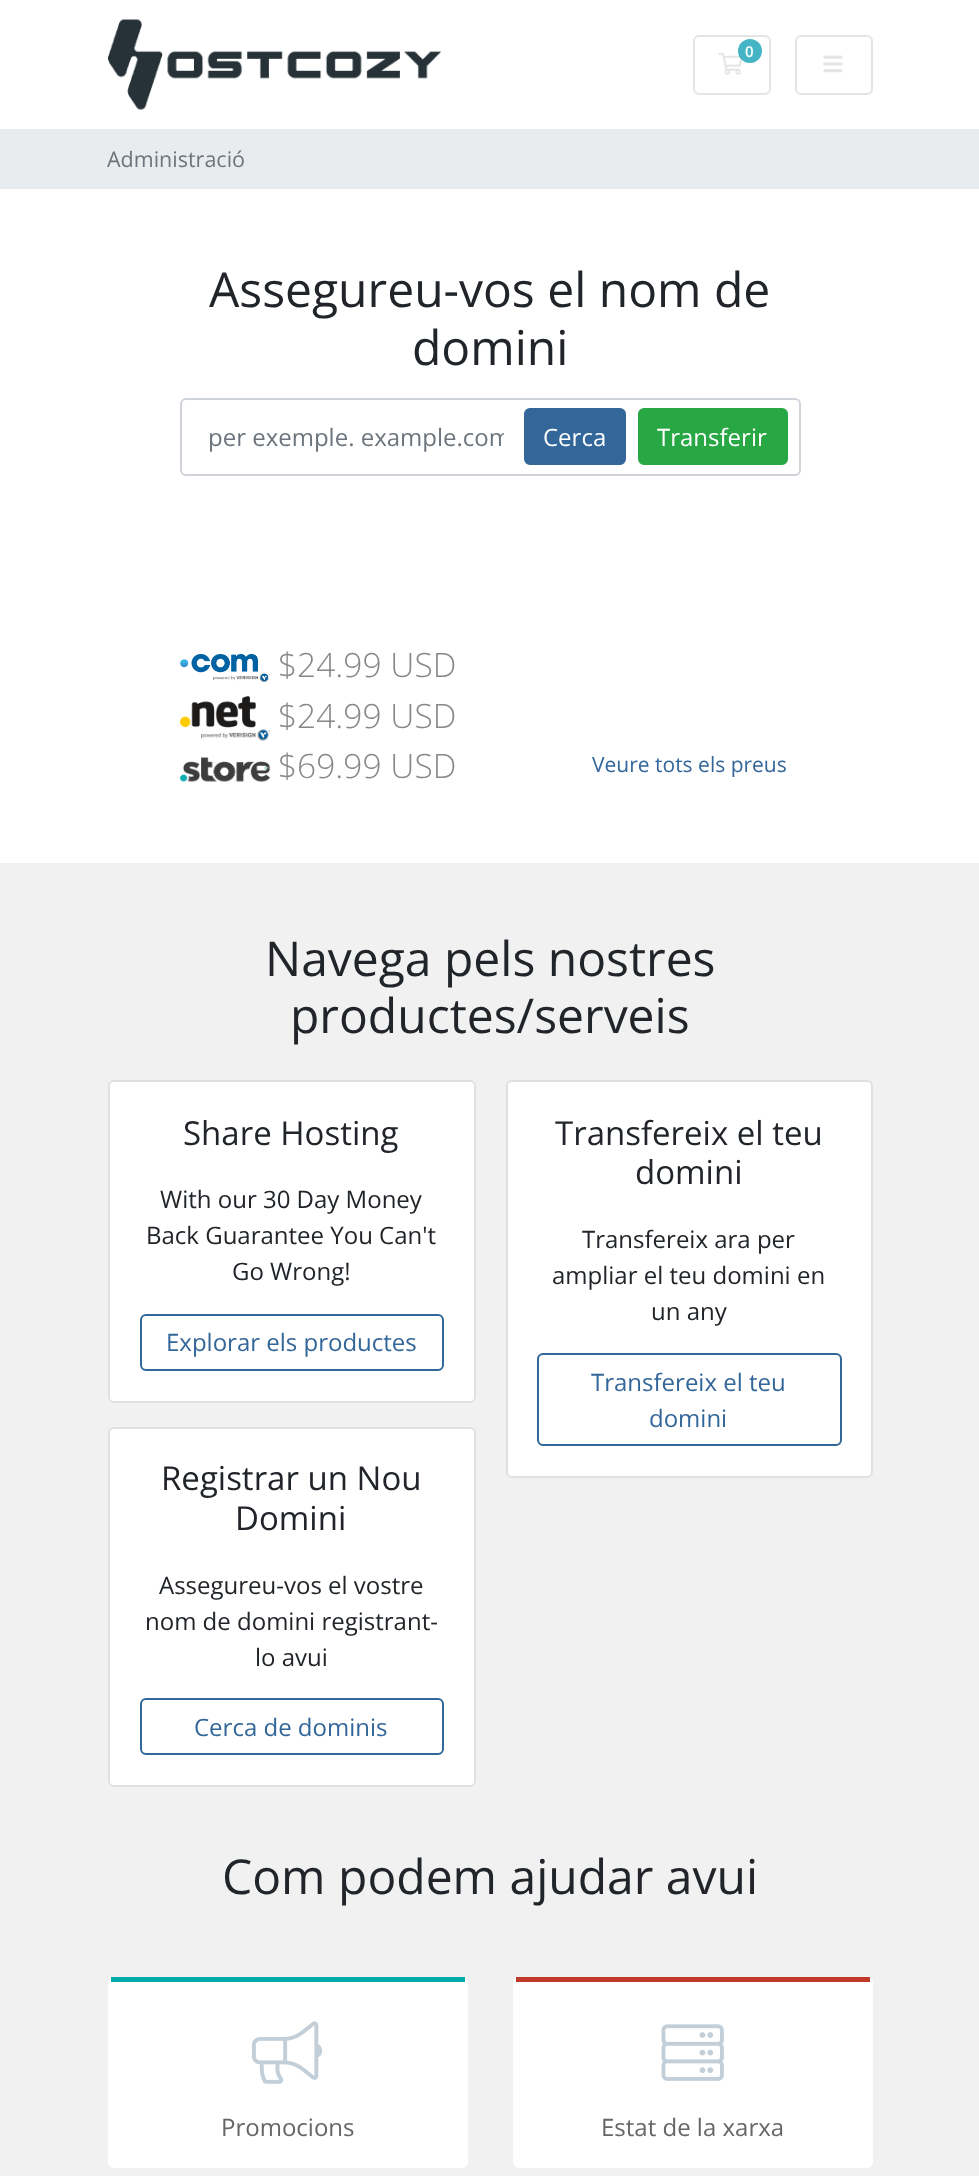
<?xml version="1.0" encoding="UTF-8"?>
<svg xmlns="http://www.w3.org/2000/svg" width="979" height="2176">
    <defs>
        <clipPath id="clip1"><rect x="209" y="420" width="295" height="33"/></clipPath>
    </defs>
    <rect width="100%" height="100%" fill="#F1F1F1"/>
    <rect x="0" y="0" width="979" height="129" fill="#FFFFFF"/>
    <image x="108" y="19" width="333" height="91" href="img_01.png"/>
    <rect x="694" y="36" width="76" height="58" rx="5" fill="none" stroke="#E5E5E5" stroke-width="2"/>
    <image x="718" y="53" width="25" height="22" href="img_02.png"/>
    <circle cx="750" cy="51" r="12" fill="#17A2B8" fill-opacity="0.8"/>
    <text x="745" y="57" font-family="Open Sans" font-size="15" font-weight="600" fill="#FFFFFF">0</text>
    <rect x="796" y="36" width="76" height="58" rx="5" fill="none" stroke="#E5E5E5" stroke-width="2"/>
    <image x="823" y="55" width="20" height="18" href="img_03.png"/>
    <rect x="0" y="129" width="979" height="60" fill="#E9ECEF"/>
    <text x="107" y="167" font-family="Open Sans" font-size="21.5" fill="#6C757D">Administració</text>
    <rect x="0" y="189" width="979" height="674" fill="#FFFFFF"/>
    <text x="209" y="307" font-family="Open Sans" font-size="48" fill="#212529">Assegureu-vos el nom de</text>
    <text x="412" y="365" font-family="Open Sans" font-size="48" fill="#212529">domini</text>
    <rect x="181" y="399" width="619" height="76" rx="5" fill="none" stroke="#CED4DA" stroke-width="2"/>
    <g clip-path="url(#clip1)">
        <text x="208" y="446" font-family="Open Sans" font-size="24" fill="#6C757D">per exemple. example.com</text>
    </g>
    <rect x="525" y="409" width="100" height="55" rx="5" fill="#336699" stroke="#336699" stroke-width="2"/>
    <text x="543" y="446" font-family="Open Sans" font-size="24" fill="#FFFFFF">Cerca</text>
    <rect x="639" y="409" width="148" height="55" rx="5" fill="#28A745" stroke="#28A745" stroke-width="2"/>
    <text x="657" y="446" font-family="Open Sans" font-size="24" fill="#FFFFFF">Transferir</text>
    <image x="180" y="654" width="90" height="29" href="img_04.png"/>
    <text x="278" y="677" font-family="Open Sans" font-size="33.5" font-weight="300" fill="#888888">$24.99 USD</text>
    <image x="180" y="696" width="90" height="45" href="img_05.png"/>
    <text x="278" y="728" font-family="Open Sans" font-size="33.5" font-weight="300" fill="#888888">$24.99 USD</text>
    <image x="180" y="757" width="90" height="25" href="img_06.png"/>
    <text x="278" y="778" font-family="Open Sans" font-size="33.5" font-weight="300" fill="#888888">$69.99 USD</text>
    <text x="592" y="772" font-family="Open Sans" font-size="21" fill="#336699">Veure tots els preus</text>
    <text x="265" y="976" font-family="Open Sans" font-size="48" fill="#212529">Navega pels nostres</text>
    <text x="290" y="1033" font-family="Open Sans" font-size="48" fill="#212529">productes/serveis</text>
    <rect x="108" y="1080" width="368" height="323" rx="6" fill="#FFFFFF"/>
    <rect x="109" y="1081" width="366" height="321" rx="5" fill="none" stroke="#000000" stroke-opacity="0.12" stroke-width="2"/>
    <text x="183" y="1145" font-family="Open Sans" font-size="33" fill="#212529">Share Hosting</text>
    <text x="160" y="1208" font-family="Open Sans" font-size="24" fill="#212529">With our 30 Day Money</text>
    <text x="146" y="1244" font-family="Open Sans" font-size="24" fill="#212529">Back Guarantee You Can't</text>
    <text x="232" y="1280" font-family="Open Sans" font-size="24" fill="#212529">Go Wrong!</text>
    <rect x="141" y="1315" width="302" height="55" rx="5" fill="none" stroke="#336699" stroke-width="2"/>
    <text x="166" y="1351" font-family="Open Sans" font-size="24" fill="#336699">Explorar els productes</text>
    <rect x="506" y="1080" width="367" height="398" rx="6" fill="#FFFFFF"/>
    <rect x="507" y="1081" width="365" height="396" rx="5" fill="none" stroke="#000000" stroke-opacity="0.12" stroke-width="2"/>
    <text x="555" y="1145" font-family="Open Sans" font-size="33" fill="#212529">Transfereix el teu</text>
    <text x="635" y="1184" font-family="Open Sans" font-size="33" fill="#212529">domini</text>
    <text x="582" y="1248" font-family="Open Sans" font-size="24" fill="#212529">Transfereix ara per</text>
    <text x="552" y="1284" font-family="Open Sans" font-size="24" fill="#212529">ampliar el teu domini en</text>
    <text x="651" y="1320" font-family="Open Sans" font-size="24" fill="#212529">un any</text>
    <rect x="538" y="1354" width="303" height="91" rx="5" fill="none" stroke="#336699" stroke-width="2"/>
    <text x="591" y="1391" font-family="Open Sans" font-size="24" fill="#336699">Transfereix el teu</text>
    <text x="649" y="1427" font-family="Open Sans" font-size="24" fill="#336699">domini</text>
    <rect x="108" y="1427" width="368" height="360" rx="6" fill="#FFFFFF"/>
    <rect x="109" y="1428" width="366" height="358" rx="5" fill="none" stroke="#000000" stroke-opacity="0.12" stroke-width="2"/>
    <text x="161" y="1490" font-family="Open Sans" font-size="33" fill="#212529">Registrar un Nou</text>
    <text x="235" y="1530" font-family="Open Sans" font-size="33" fill="#212529">Domini</text>
    <text x="159" y="1594" font-family="Open Sans" font-size="24" fill="#212529">Assegureu-vos el vostre</text>
    <text x="145" y="1630" font-family="Open Sans" font-size="24" fill="#212529">nom de domini registrant-</text>
    <text x="255" y="1666" font-family="Open Sans" font-size="24" fill="#212529">lo avui</text>
    <rect x="141" y="1699" width="302" height="55" rx="5" fill="none" stroke="#336699" stroke-width="2"/>
    <text x="194" y="1736" font-family="Open Sans" font-size="24" fill="#336699">Cerca de dominis</text>
    <text x="222" y="1894" font-family="Open Sans" font-size="48" fill="#212529">Com podem ajudar avui</text>
    <rect x="108" y="1977" width="360" height="191" rx="6" fill="#FFFFFF"/>
    <rect x="111" y="1977" width="354" height="5" fill="#00ABA9"/>
    <image x="252" y="2021" width="71" height="63" href="img_07.png"/>
    <text x="221" y="2136" font-family="Open Sans" font-size="24" fill="#666666">Promocions</text>
    <rect x="513" y="1977" width="360" height="191" rx="6" fill="#FFFFFF"/>
    <rect x="516" y="1977" width="354" height="5" fill="#C0392B"/>
    <image x="661" y="2024" width="63" height="57" href="img_08.png"/>
    <text x="601" y="2136" font-family="Open Sans" font-size="24" fill="#666666">Estat de la xarxa</text>
</svg>
